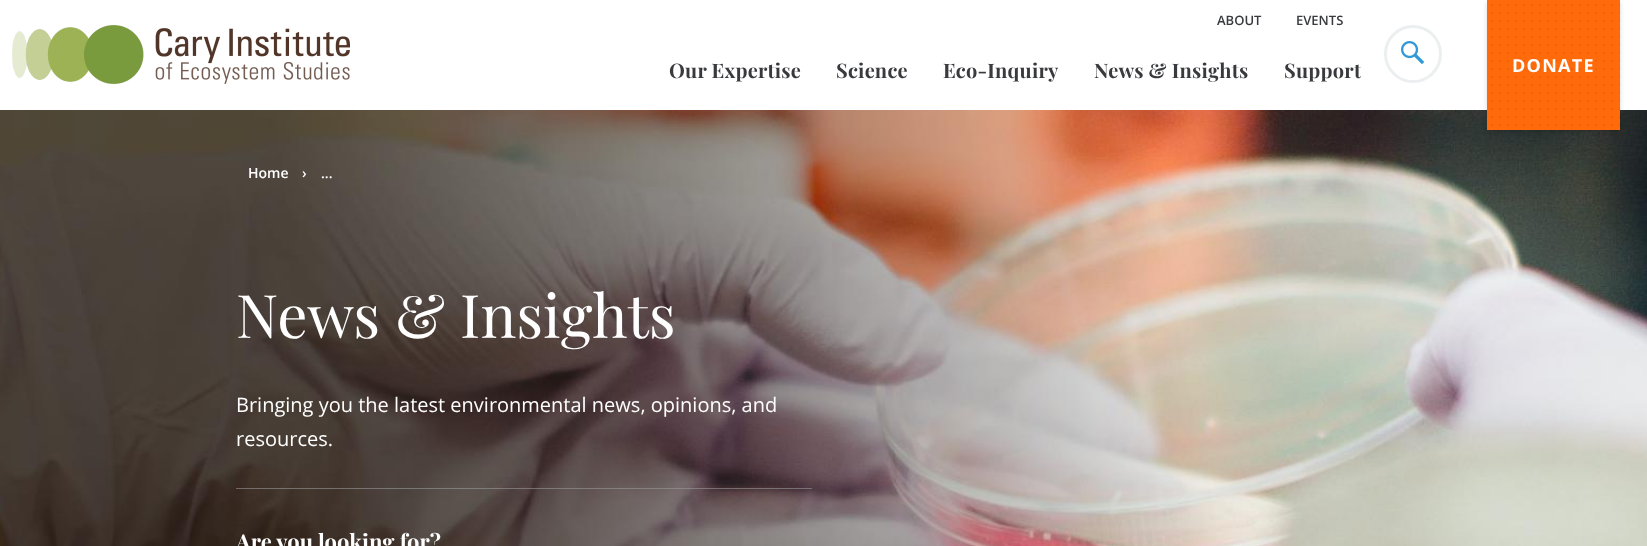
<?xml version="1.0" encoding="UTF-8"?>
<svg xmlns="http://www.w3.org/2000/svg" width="1647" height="546">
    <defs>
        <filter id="blur1" x="-50%" y="-200%" width="200%" height="500%"><feGaussianBlur stdDeviation="2.5"/></filter>
    </defs>
    <rect width="100%" height="100%" fill="#FFFFFF"/>
    <image x="12" y="25" width="338" height="59" href="img_01.png"/>
    <text x="1217" y="25" font-family="Open Sans" font-size="13" font-weight="600" fill="#393A3D">ABOUT</text>
    <text x="1296" y="25" font-family="Open Sans" font-size="13" font-weight="600" fill="#393A3D">EVENTS</text>
    <text x="669" y="78" font-family="Playfair Display" font-size="20" font-weight="700" letter-spacing="0.25" fill="#393A3D">Our Expertise</text>
    <text x="836" y="78" font-family="Playfair Display" font-size="20" font-weight="700" letter-spacing="0.25" fill="#393A3D">Science</text>
    <text x="943" y="78" font-family="Playfair Display" font-size="20" font-weight="700" letter-spacing="0.25" fill="#393A3D">Eco-Inquiry</text>
    <text x="1094" y="78" font-family="Playfair Display" font-size="20" font-weight="700" letter-spacing="0.25" fill="#393A3D">News &amp; Insights</text>
    <text x="1284" y="78" font-family="Playfair Display" font-size="20" font-weight="700" letter-spacing="0.25" fill="#393A3D">Support</text>
    <circle cx="1413" cy="54" r="27.5" fill="none" stroke="#EBEFF0" stroke-width="3"/>
    <image x="1401" y="41" width="23" height="23" href="img_02.png"/>
    <image x="0" y="110" width="1647" height="436" href="img_04.png"/>
    <rect x="1487" y="2" width="133" height="130" fill="#000000" fill-opacity="0.14" filter="url(#blur1)"/>
    <rect x="1487" y="0" width="133" height="130" fill="#FF6A0A"/>
    <image x="1491" y="4" width="129" height="122" href="img_03.png"/>
    <text x="1512" y="72" font-family="Open Sans" font-size="18" font-weight="700" letter-spacing="1.25" fill="#FFFFFF">DONATE</text>
    <text x="248" y="178" font-family="Open Sans" font-size="14" font-weight="600" fill="#FFFFFF">Home</text>
    <text x="302" y="178" font-family="Open Sans" font-size="14" font-weight="600" fill="#FFFFFF">›</text>
    <text x="321" y="178" font-family="Open Sans" font-size="14" font-weight="600" fill="#FFFFFF">...</text>
    <text x="236" y="338" font-family="Playfair Display" font-size="60" fill="#FFFFFF">News &amp; Insights</text>
    <text font-family="Open Sans" font-size="20" fill="#FFFFFF">
        <tspan x="236" y="412">Bringing you the latest environmental news, opinions, and</tspan>
        <tspan x="236" y="446">resources.</tspan>
    </text>
    <rect x="236" y="488" width="576" height="1" fill="#979797" fill-opacity="0.6"/>
    <text x="236" y="550" font-family="Playfair Display" font-size="22" font-weight="700" fill="#FFFFFF">Are you looking for?</text>
</svg>
